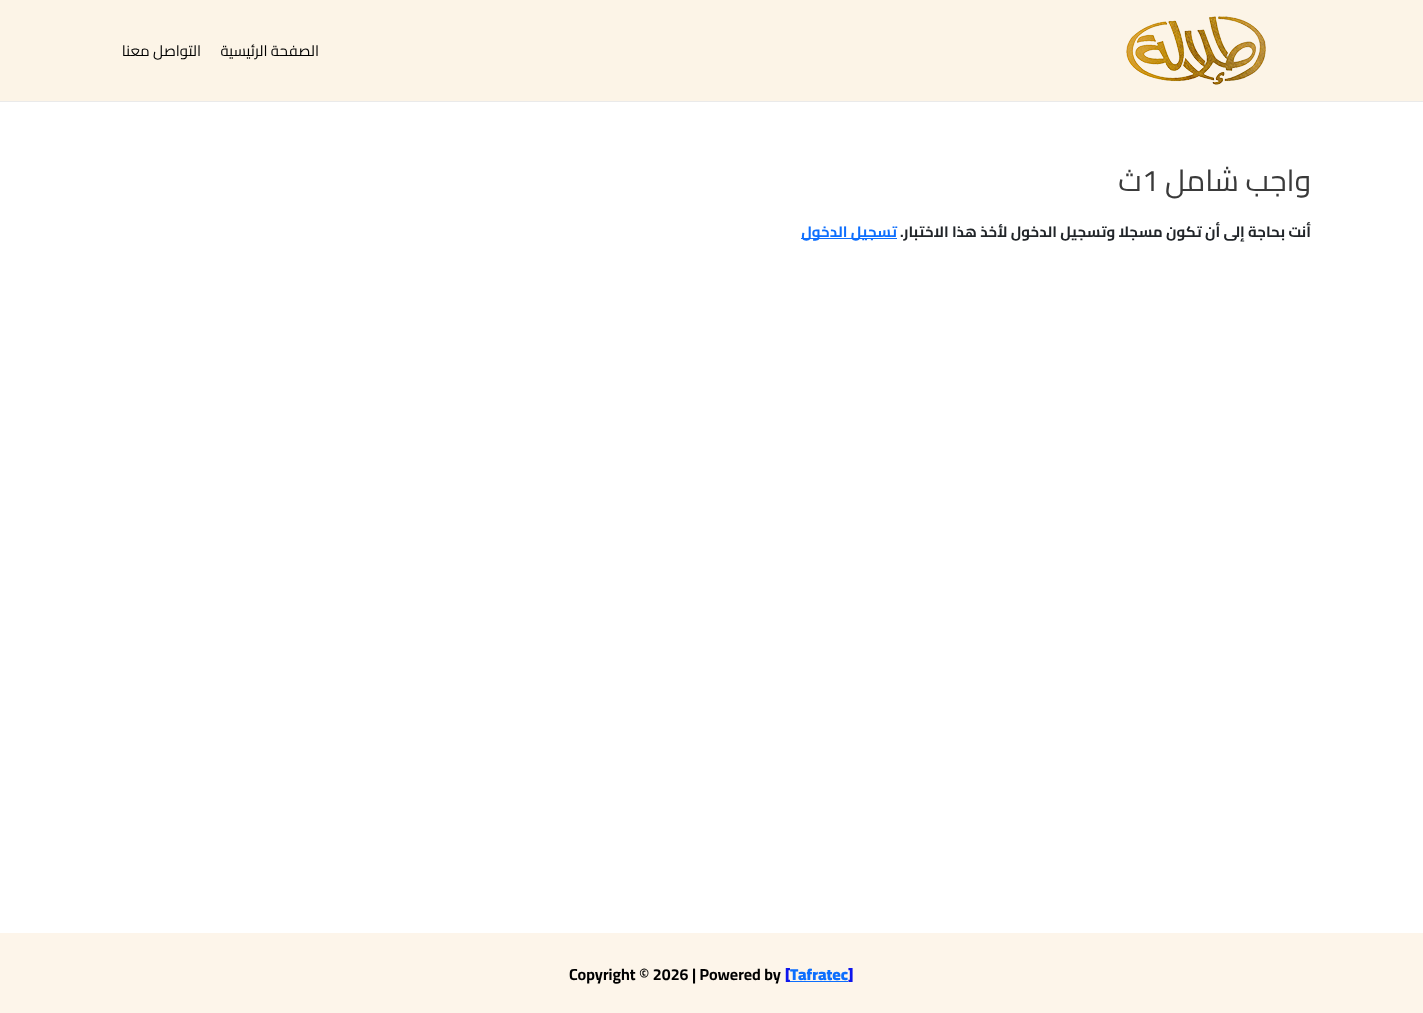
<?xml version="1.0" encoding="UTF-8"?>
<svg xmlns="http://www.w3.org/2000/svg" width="1423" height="1013">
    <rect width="100%" height="100%" fill="#FFFFFF"/>
    <rect x="0" y="0" width="1423" height="101" fill="#FCF4E7"/>
    <rect x="0" y="101" width="1423" height="1" fill="#EAEAEA"/>
    <image x="1126" y="16" width="140" height="69" href="img_01.png"/>
    <text x="319" y="56" font-family="Cairo" font-size="15" direction="rtl" fill="#000000">الصفحة الرئيسية</text>
    <text x="201" y="56" font-family="Cairo" font-size="15" direction="rtl" fill="#000000">التواصل معنا</text>
    <text x="1311" y="191" font-family="Cairo" font-size="30" direction="rtl" fill="#3A3A3A">واجب شامل</text>
    <text x="1142" y="191" font-family="Cairo" font-size="30" fill="#3A3A3A">1</text>
    <text x="1142" y="191" font-family="Cairo" font-size="30" direction="rtl" fill="#3A3A3A">ث</text>
    <text x="1311" y="237" font-family="Cairo" font-size="15" font-weight="700" direction="rtl" fill="#212529">أنت بحاجة إلى أن تكون مسجلا وتسجيل الدخول لأخذ هذا الاختبار.</text>
    <rect x="801" y="238" width="96" height="1" fill="#0D6EFD"/>
    <text x="897" y="237" font-family="Cairo" font-size="15" font-weight="700" direction="rtl" fill="#0D6EFD">تسجيل الدخول</text>
    <rect x="0" y="933" width="1423" height="80" fill="#FDF5EA"/>
    <text x="848" y="980" font-family="Cairo" font-size="16" font-weight="900" fill="#0E16ED">]</text>
    <text x="790" y="980" font-family="Cairo" font-size="16" font-weight="900" fill="#0D6EFD">Tafratec</text>
    <text x="785" y="980" font-family="Cairo" font-size="16" font-weight="900" fill="#0E16ED">[</text>
    <rect x="790" y="981" width="58" height="1" fill="#0D6EFD"/>
    <text x="569" y="980" font-family="Cairo" font-size="16" font-weight="700" fill="#000000">Copyright © 2026 | Powered by</text>
</svg>
